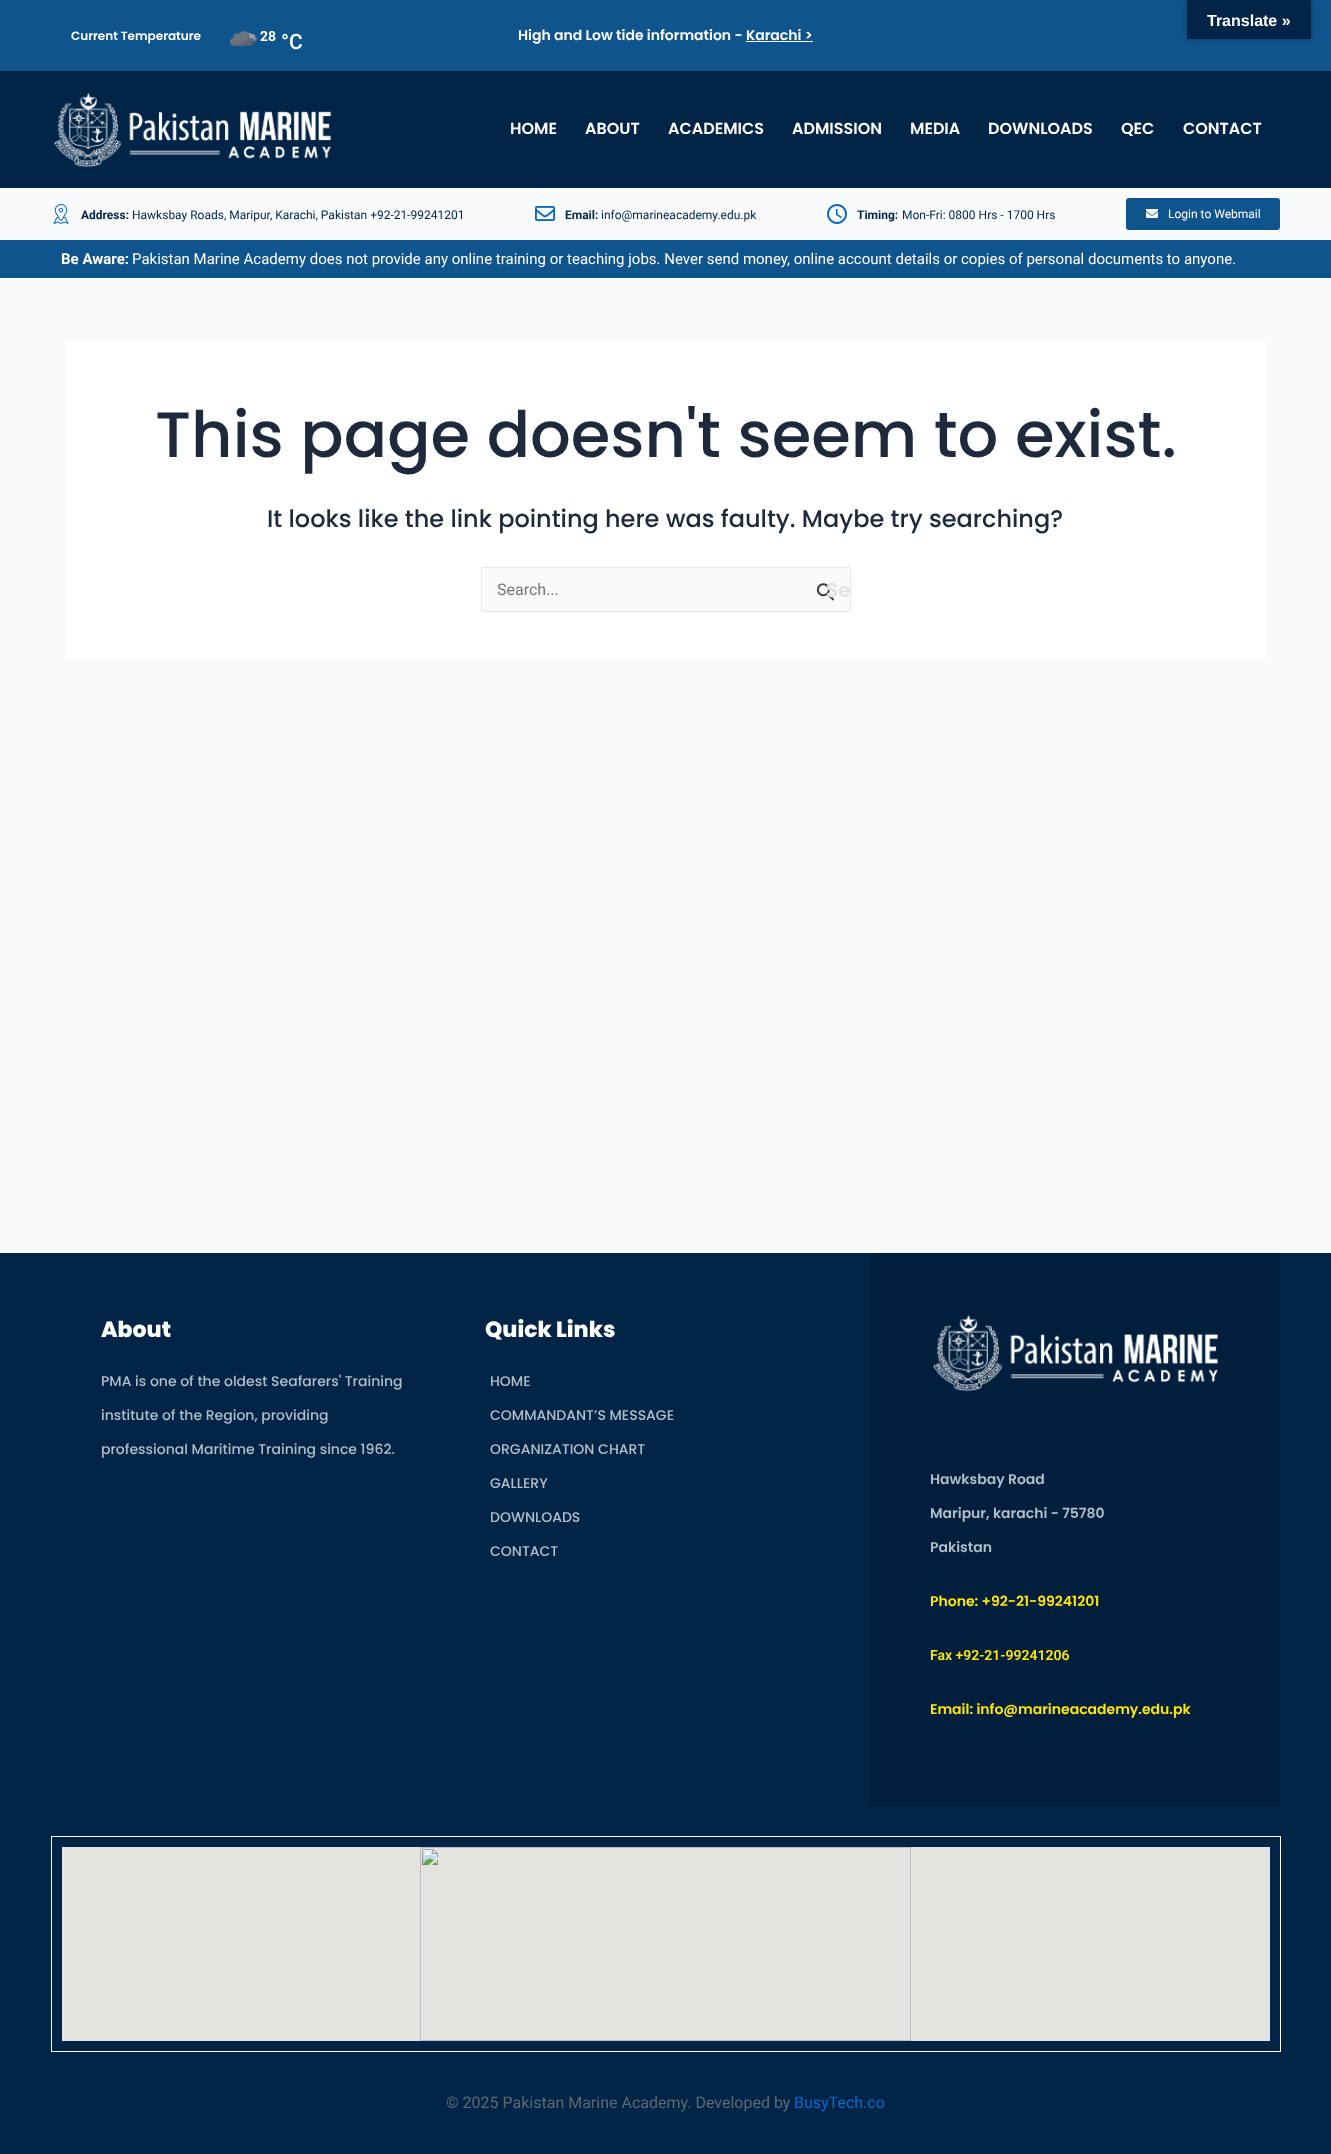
<?xml version="1.0" encoding="UTF-8"?>
<svg xmlns="http://www.w3.org/2000/svg" width="1331" height="2154">
    <defs>
        <filter id="blur1" x="-50%" y="-200%" width="200%" height="500%"><feGaussianBlur stdDeviation="4.5"/></filter>
    </defs>
    <rect width="100%" height="100%" fill="#F9FAFB"/>
    <rect x="0" y="0" width="1331" height="71" fill="#10548E"/>
    <rect x="1187" y="0" width="124" height="39" fill="#000000" fill-opacity="0.3" filter="url(#blur1)"/>
    <rect x="1187" y="0" width="124" height="39" fill="#022447"/>
    <text x="1207" y="26" font-family="Liberation Sans" font-size="16" font-weight="700" fill="#FFFFFF">Translate »</text>
    <text x="71" y="40" font-family="Poppins" font-size="12" font-weight="600" fill="#FFFFFF">Current Temperature</text>
    <image x="230" y="31" width="27" height="15" href="img_01.png"/>
    <text x="260" y="41" font-family="Roboto" font-size="14" font-weight="700" fill="#FFFFFF">28</text>
    <text x="281" y="49" font-family="Roboto" font-size="21" font-weight="500" fill="#FFFFFF">°C</text>
    <text x="518" y="40" font-family="Poppins" font-size="14" font-weight="600" fill="#FFFFFF">High and Low tide information - Karachi &gt;</text>
    <rect x="746" y="41" width="67" height="1" fill="#FFFFFF"/>
    <rect x="0" y="71" width="1331" height="117" fill="#022447"/>
    <image x="53" y="93" width="279" height="75" href="img_02.png"/>
    <text x="510" y="134" font-family="Poppins" font-size="16" font-weight="600" fill="#FFFFFF">HOME</text>
    <text x="585" y="134" font-family="Poppins" font-size="16" font-weight="600" fill="#FFFFFF">ABOUT</text>
    <text x="668" y="134" font-family="Poppins" font-size="16" font-weight="600" fill="#FFFFFF">ACADEMICS</text>
    <text x="792" y="134" font-family="Poppins" font-size="16" font-weight="600" fill="#FFFFFF">ADMISSION</text>
    <text x="910" y="134" font-family="Poppins" font-size="16" font-weight="600" fill="#FFFFFF">MEDIA</text>
    <text x="988" y="134" font-family="Poppins" font-size="16" font-weight="600" fill="#FFFFFF">DOWNLOADS</text>
    <text x="1121" y="134" font-family="Poppins" font-size="16" font-weight="600" fill="#FFFFFF">QEC</text>
    <text x="1183" y="134" font-family="Poppins" font-size="16" font-weight="600" fill="#FFFFFF">CONTACT</text>
    <image x="53" y="204" width="16" height="20" href="img_03.png"/>
    <text x="81" y="219" font-family="Roboto" font-size="12" font-weight="700" fill="#022447">Address:</text>
    <text x="132" y="219" font-family="Roboto" font-size="12" fill="#022447">Hawksbay Roads, Maripur, Karachi, Pakistan +92-21-99241201</text>
    <image x="535" y="206" width="20" height="15" href="img_04.png"/>
    <text x="565" y="219" font-family="Roboto" font-size="12" font-weight="700" fill="#022447">Email:</text>
    <text x="601" y="219" font-family="Roboto" font-size="12" fill="#022447">info@marineacademy.edu.pk</text>
    <image x="827" y="204" width="20" height="20" href="img_05.png"/>
    <text x="857" y="219" font-family="Roboto" font-size="12" font-weight="700" fill="#022447">Timing:</text>
    <text x="902" y="219" font-family="Roboto" font-size="12" fill="#022447">Mon-Fri: 0800 Hrs - 1700 Hrs</text>
    <rect x="1126" y="198" width="154" height="32" rx="3" fill="#10548E"/>
    <image x="1146" y="209" width="12" height="9" href="img_06.png"/>
    <text x="1168" y="218" font-family="Roboto" font-size="12" fill="#FFFFFF">Login to Webmail</text>
    <rect x="0" y="240" width="1331" height="38" fill="#10548E"/>
    <text x="61" y="264" font-family="Roboto" font-size="15" font-weight="700" fill="#FFFFFF">Be Aware:</text>
    <text x="132" y="264" font-family="Roboto" font-size="15" fill="#FFFFFF">Pakistan Marine Academy does not provide any online training or teaching jobs. Never send money, online account details or copies of personal documents to anyone.</text>
    <rect x="66" y="342" width="1200" height="318" fill="#FFFFFF"/>
    <text x="155" y="457" font-family="Poppins" font-size="64" font-weight="500" fill="#1E293B">This page doesn't seem to exist.</text>
    <text x="267" y="527" font-family="Poppins" font-size="24" font-weight="500" fill="#1E293B">It looks like the link pointing here was faulty. Maybe try searching?</text>
    <rect x="481.5" y="567.5" width="369" height="44" rx="1.5" fill="#FAFAFA" stroke="#E2E8F0"/>
    <text x="497" y="595" font-family="Roboto" font-size="16" fill="#757575">Search...</text>
    <image x="816" y="583" width="18" height="18" href="img_07.png"/>
    <text x="826" y="597" font-family="Poppins" font-size="20" font-weight="600" fill="#E3E3E3">Se</text>
    <rect x="0" y="1253" width="1331" height="901" fill="#022447"/>
    <text x="101" y="1337" font-family="Poppins" font-size="22" font-weight="800" fill="#FFFFFF">About</text>
    <text x="101" y="1386" font-family="Poppins" font-size="14" font-weight="500" fill="#B2BECA">PMA is one of the oldest Seafarers' Training</text>
    <text x="101" y="1420" font-family="Poppins" font-size="14" font-weight="500" fill="#B2BECA">institute of the Region, providing</text>
    <text x="101" y="1454" font-family="Poppins" font-size="14" font-weight="500" fill="#B2BECA">professional Maritime Training since 1962.</text>
    <text x="485" y="1337" font-family="Poppins" font-size="22" font-weight="800" fill="#FFFFFF">Quick Links</text>
    <text x="490" y="1386" font-family="Poppins" font-size="14" font-weight="500" fill="#B2BECA">HOME</text>
    <text x="490" y="1420" font-family="Poppins" font-size="14" font-weight="500" fill="#B2BECA">COMMANDANT’S MESSAGE</text>
    <text x="490" y="1454" font-family="Poppins" font-size="14" font-weight="500" fill="#B2BECA">ORGANIZATION CHART</text>
    <text x="490" y="1488" font-family="Poppins" font-size="14" font-weight="500" fill="#B2BECA">GALLERY</text>
    <text x="490" y="1522" font-family="Poppins" font-size="14" font-weight="500" fill="#B2BECA">DOWNLOADS</text>
    <text x="490" y="1556" font-family="Poppins" font-size="14" font-weight="500" fill="#B2BECA">CONTACT</text>
    <rect x="870" y="1253" width="410" height="553" fill="#011F3D"/>
    <image x="932" y="1315" width="287" height="77" href="img_08.png"/>
    <text x="930" y="1484" font-family="Poppins" font-size="14" font-weight="600" fill="#B2BECA">Hawksbay Road</text>
    <text x="930" y="1518" font-family="Poppins" font-size="14" font-weight="600" fill="#B2BECA">Maripur, karachi - 75780</text>
    <text x="930" y="1552" font-family="Poppins" font-size="14" font-weight="600" fill="#B2BECA">Pakistan</text>
    <text x="930" y="1606" font-family="Poppins" font-size="14" font-weight="600" fill="#FFE701">Phone: +92-21-99241201</text>
    <text x="930" y="1660" font-family="Roboto" font-size="14" font-weight="600" fill="#FFE701">Fax +92-21-99241206</text>
    <text x="930" y="1714" font-family="Poppins" font-size="14" font-weight="600" fill="#FFE701">Email: info@marineacademy.edu.pk</text>
    <rect x="51.5" y="1836.5" width="1229" height="215" fill="none" stroke="#FFFFFF"/>
    <image x="62" y="1847" width="1208" height="194" href="img_09.png"/>
    <text x="446" y="2108" font-family="Roboto" font-size="16" fill="#5F6973">© 2025 Pakistan Marine Academy. Developed by</text>
    <text x="794" y="2108" font-family="Roboto" font-size="16" fill="#046BD2">BusyTech.co</text>
</svg>
